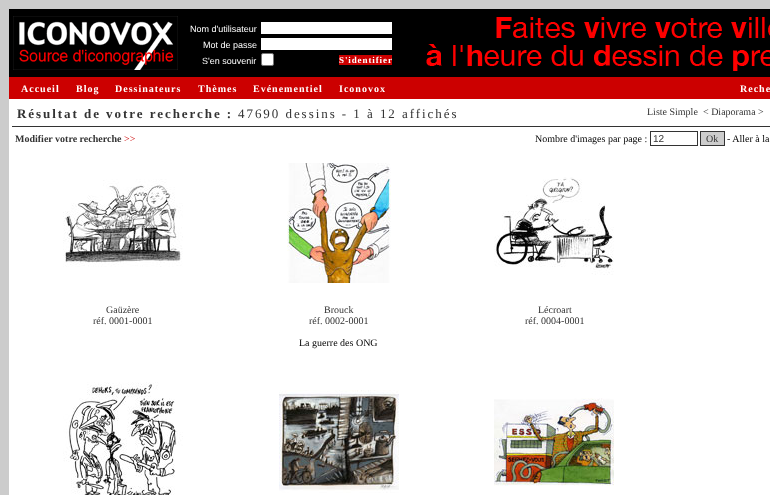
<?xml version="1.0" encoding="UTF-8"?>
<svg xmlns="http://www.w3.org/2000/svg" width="770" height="495">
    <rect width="100%" height="100%" fill="#CCCCCC"/>
    <rect x="9" y="9" width="761" height="68" fill="#000000"/>
    <image x="13" y="16" width="165" height="54" href="img_01.png"/>
    <text x="190" y="32" font-family="Liberation Sans" font-size="9" fill="#FFFFFF">Nom d'utilisateur</text>
    <rect x="261" y="22" width="131" height="12" fill="#FFFFFF"/>
    <text x="203" y="48" font-family="Liberation Sans" font-size="9" fill="#FFFFFF">Mot de passe</text>
    <rect x="261" y="38" width="131" height="12" fill="#FFFFFF"/>
    <text x="202" y="64" font-family="Liberation Sans" font-size="9" fill="#FFFFFF">S'en souvenir</text>
    <rect x="261.5" y="53.5" width="12" height="12" rx="1.5" fill="#FFFFFF" stroke="#767676"/>
    <rect x="339" y="55" width="53" height="10" fill="#CC0000"/>
    <text x="339" y="63" font-family="Liberation Serif" font-size="9" font-weight="700" letter-spacing="0.9" fill="#FFFFFF">S'identifier</text>
    <image x="426" y="17" width="344" height="54" href="img_02.png"/>
    <rect x="9" y="77" width="761" height="22" fill="#CC0000"/>
    <text x="21" y="92" font-family="Liberation Serif" font-size="10" font-weight="700" letter-spacing="1" fill="#FFFFFF">Accueil</text>
    <text x="76" y="92" font-family="Liberation Serif" font-size="10" font-weight="700" letter-spacing="1" fill="#FFFFFF">Blog</text>
    <text x="115" y="92" font-family="Liberation Serif" font-size="10" font-weight="700" letter-spacing="1" fill="#FFFFFF">Dessinateurs</text>
    <text x="198" y="92" font-family="Liberation Serif" font-size="10" font-weight="700" letter-spacing="1" fill="#FFFFFF">Thèmes</text>
    <text x="253" y="92" font-family="Liberation Serif" font-size="10" font-weight="700" letter-spacing="1" fill="#FFFFFF">Evénementiel</text>
    <text x="339" y="92" font-family="Liberation Serif" font-size="10" font-weight="700" letter-spacing="1" fill="#FFFFFF">Iconovox</text>
    <text x="740" y="92" font-family="Liberation Serif" font-size="10" font-weight="700" letter-spacing="1" fill="#FFFFFF">Reche</text>
    <rect x="9" y="99" width="761" height="396" fill="#FFFFFF"/>
    <rect x="12" y="126" width="758" height="1" fill="#333333"/>
    <text x="17" y="118" font-family="Liberation Serif" font-size="13" font-weight="700" letter-spacing="1.95" fill="#333333">Résultat de votre recherche :</text>
    <text x="238" y="118" font-family="Liberation Serif" font-size="13" letter-spacing="1.95" fill="#333333">47690 dessins - 1 à 12 affichés</text>
    <text x="647" y="115" font-family="Liberation Serif" font-size="10" fill="#333333">Liste Simple</text>
    <text x="703" y="115" font-family="Liberation Serif" font-size="10" fill="#333333">&lt; Diaporama &gt;</text>
    <text x="15" y="142" font-family="Liberation Serif" font-size="10" font-weight="700" fill="#333333">Modifier votre recherche</text>
    <text x="124" y="142" font-family="Liberation Serif" font-size="10" fill="#CC0000">&gt;&gt;</text>
    <text x="535" y="142" font-family="Liberation Serif" font-size="10" fill="#000000">Nombre d'images par page :</text>
    <rect x="650.5" y="131.5" width="47" height="14" fill="none" stroke="#333333"/>
    <text x="653" y="142" font-family="Liberation Sans" font-size="10" fill="#333333">12</text>
    <rect x="700.5" y="131.5" width="24" height="14" fill="#CCCCCC" stroke="#333333"/>
    <text x="706" y="142" font-family="Liberation Serif" font-size="10" fill="#333333">Ok</text>
    <text x="727" y="142" font-family="Liberation Serif" font-size="10" fill="#000000">- Aller à la</text>
    <image x="63" y="179" width="120" height="88" href="img_03.png"/>
    <text x="106" y="313" font-family="Liberation Serif" font-size="10" fill="#333333">Gaüzère</text>
    <text x="93" y="324" font-family="Liberation Serif" font-size="10" fill="#333333">réf. 0001-0001</text>
    <image x="287" y="163" width="104" height="120" href="img_04.png"/>
    <text x="324" y="313" font-family="Liberation Serif" font-size="10" fill="#333333">Brouck</text>
    <text x="309" y="324" font-family="Liberation Serif" font-size="10" fill="#333333">réf. 0002-0001</text>
    <text x="299" y="346" font-family="Liberation Serif" font-size="10" fill="#000000">La guerre des ONG</text>
    <image x="494" y="177" width="120" height="98" href="img_05.png"/>
    <text x="538" y="313" font-family="Liberation Serif" font-size="10" fill="#333333">Lécroart</text>
    <text x="525" y="324" font-family="Liberation Serif" font-size="10" fill="#333333">réf. 0004-0001</text>
    <image x="63" y="382" width="120" height="113" href="img_06.png"/>
    <image x="279" y="390" width="120" height="103" href="img_07.png"/>
    <image x="494" y="398" width="120" height="88" href="img_08.png"/>
</svg>
